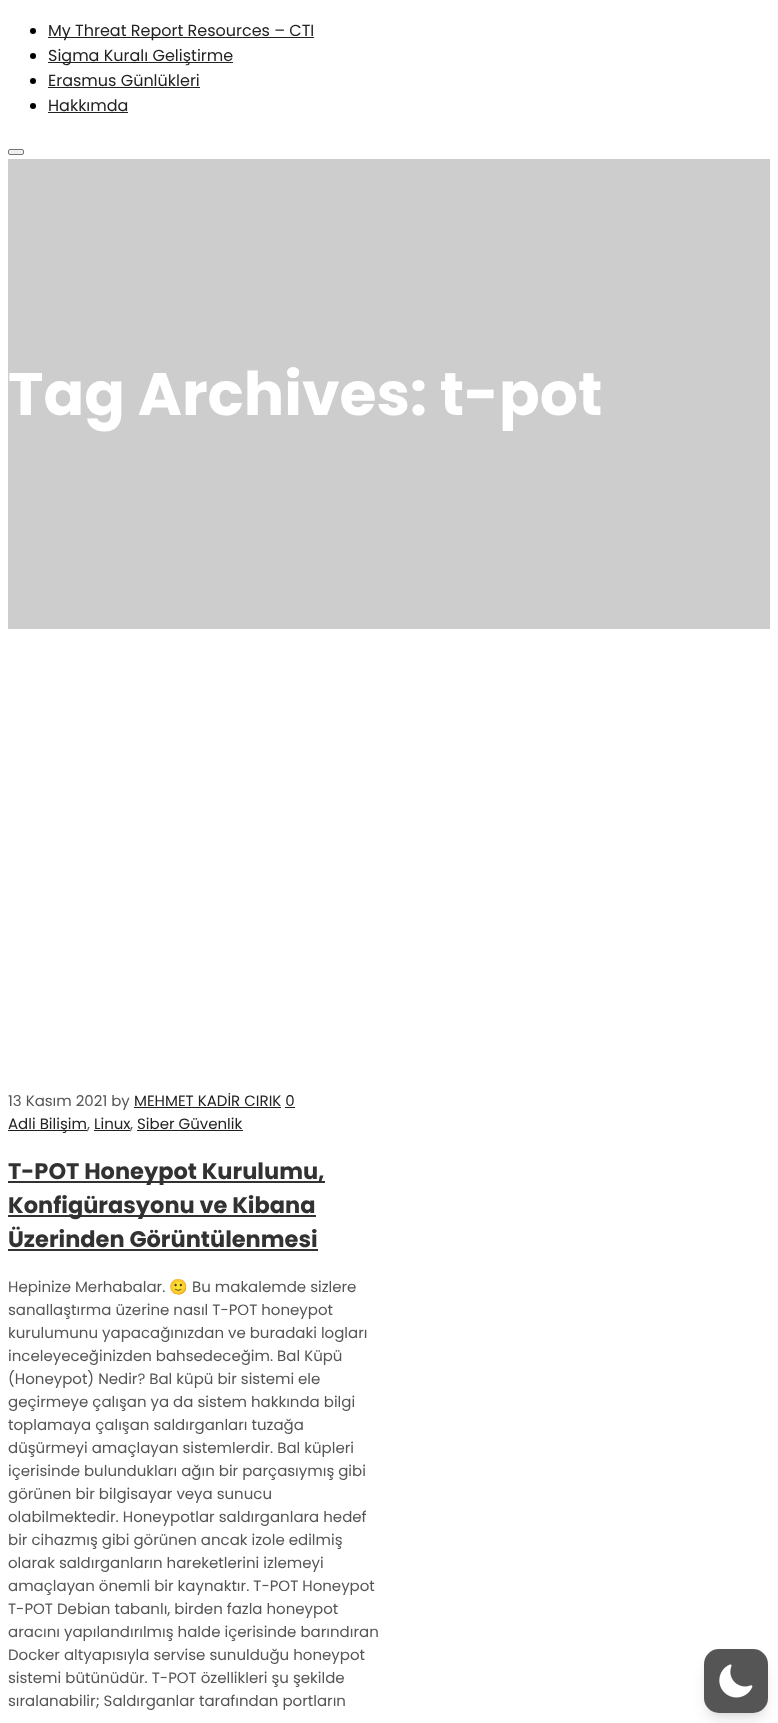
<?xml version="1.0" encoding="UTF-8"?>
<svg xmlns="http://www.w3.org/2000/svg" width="778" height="1723">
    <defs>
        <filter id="blur1" x="-50%" y="-200%" width="200%" height="500%"><feGaussianBlur stdDeviation="3"/></filter>
        <filter id="blur2" x="-50%" y="-200%" width="200%" height="500%"><feGaussianBlur stdDeviation="7.5"/></filter>
    </defs>
    <rect width="100%" height="100%" fill="#FFFFFF"/>
    <circle cx="33" cy="31" r="3" fill="#000000"/>
    <rect x="48" y="37" width="266" height="1" fill="#222222"/>
    <text x="48" y="36" font-family="Poppins" font-size="16" fill="#222222">My Threat Report Resources – CTI</text>
    <circle cx="33" cy="56" r="3" fill="#000000"/>
    <rect x="48" y="62" width="185" height="1" fill="#222222"/>
    <text x="48" y="61" font-family="Poppins" font-size="16" fill="#222222">Sigma Kuralı Geliştirme</text>
    <circle cx="33" cy="81" r="3" fill="#000000"/>
    <text x="48" y="86" font-family="Poppins" font-size="16" fill="#222222">Erasmus Günlükleri</text>
    <rect x="48" y="87" width="152" height="1" fill="#222222"/>
    <circle cx="33" cy="106" r="3" fill="#000000"/>
    <text x="48" y="111" font-family="Poppins" font-size="16" fill="#222222">Hakkımda</text>
    <rect x="48" y="112" width="80" height="1" fill="#222222"/>
    <rect x="8.5" y="149.5" width="15" height="5" rx="1.5" fill="#EFEFEF" stroke="#767676"/>
    <rect x="8" y="159" width="762" height="470" fill="#CDCDCD"/>
    <text x="8" y="415" font-family="Poppins" font-size="60" font-weight="700" fill="#FFFFFF">Tag Archives: t-pot</text>
    <text x="8" y="1106" font-family="Poppins" font-size="15" fill="#555555">13 Kasım 2021 by</text>
    <text x="134" y="1106" font-family="Poppins" font-size="15" fill="#222222">MEHMET KADİR CIRIK 0</text>
    <rect x="134" y="1107" width="147" height="1" fill="#1F1F1F"/>
    <rect x="285" y="1107" width="10" height="1" fill="#1F1F1F"/>
    <rect x="8" y="1130" width="79" height="1" fill="#1F1F1F"/>
    <text x="8" y="1129" font-family="Poppins" font-size="15" fill="#222222">Adli Bilişim</text>
    <text x="87" y="1129" font-family="Poppins" font-size="15" fill="#555555">,</text>
    <text x="94" y="1129" font-family="Poppins" font-size="15" fill="#222222">Linux</text>
    <rect x="94" y="1130" width="36" height="1" fill="#1F1F1F"/>
    <text x="130" y="1129" font-family="Poppins" font-size="15" fill="#555555">,</text>
    <text x="137" y="1129" font-family="Poppins" font-size="15" fill="#222222">Siber Güvenlik</text>
    <rect x="137" y="1130" width="106" height="1" fill="#1F1F1F"/>
    <rect x="8" y="1181" width="317" height="2" fill="#323232"/>
    <text x="8" y="1179" font-family="Poppins" font-size="22.5" font-weight="700" fill="#323232">T-POT Honeypot Kurulumu,</text>
    <rect x="8" y="1215" width="308" height="2" fill="#323232"/>
    <text font-family="Poppins" font-size="22.5" font-weight="700" fill="#323232">
        <tspan x="8" y="1213">Konfigürasyonu ve Kibana</tspan>
        <tspan x="8" y="1247">Üzerinden Görüntülenmesi</tspan>
    </text>
    <rect x="8" y="1249" width="310" height="2" fill="#323232"/>
    <text x="8" y="1292" font-family="Poppins" font-size="15" fill="#555555">Hepinize Merhabalar.</text>
    <text x="169" y="1292" font-family="Noto Color Emoji" font-size="15" fill="#555555">🙂</text>
    <text x="192" y="1292" font-family="Poppins" font-size="15" fill="#555555">Bu makalemde sizlere</text>
    <text font-family="Poppins" font-size="15" fill="#555555">
        <tspan x="8" y="1315">sanallaştırma üzerine nasıl T-POT honeypot</tspan>
        <tspan x="8" y="1338">kurulumunu yapacağınızdan ve buradaki logları</tspan>
        <tspan x="8" y="1361">inceleyeceğinizden bahsedeceğim. Bal Küpü</tspan>
        <tspan x="8" y="1384">(Honeypot) Nedir? Bal küpü bir sistemi ele</tspan>
        <tspan x="8" y="1407">geçirmeye çalışan ya da sistem hakkında bilgi</tspan>
        <tspan x="8" y="1430">toplamaya çalışan saldırganları tuzağa</tspan>
        <tspan x="8" y="1453">düşürmeyi amaçlayan sistemlerdir. Bal küpleri</tspan>
        <tspan x="8" y="1476">içerisinde bulundukları ağın bir parçasıymış gibi</tspan>
        <tspan x="8" y="1499">görünen bir bilgisayar veya sunucu</tspan>
        <tspan x="8" y="1522">olabilmektedir. Honeypotlar saldırganlara hedef</tspan>
        <tspan x="8" y="1545">bir cihazmış gibi görünen ancak izole edilmiş</tspan>
        <tspan x="8" y="1568">olarak saldırganların hareketlerini izlemeyi</tspan>
        <tspan x="8" y="1591">amaçlayan önemli bir kaynaktır. T-POT Honeypot</tspan>
        <tspan x="8" y="1614">T-POT Debian tabanlı, birden fazla honeypot</tspan>
        <tspan x="8" y="1637">aracını yapılandırılmış halde içerisinde barındıran</tspan>
        <tspan x="8" y="1660">Docker altyapısıyla servise sunulduğu honeypot</tspan>
        <tspan x="8" y="1683">sistemi bütünüdür. T-POT özellikleri şu şekilde</tspan>
        <tspan x="8" y="1706">sıralanabilir; Saldırganlar tarafından portların</tspan>
    </text>
    <rect x="708" y="1657" width="56" height="56" rx="11" fill="#000000" fill-opacity="0.1" filter="url(#blur1)"/>
    <rect x="707" y="1662" width="58" height="58" rx="12" fill="#000000" fill-opacity="0.1" filter="url(#blur2)"/>
    <rect x="704" y="1649" width="64" height="64" rx="15" fill="#555555"/>
    <image x="719" y="1664" width="34" height="34" href="img_01.png"/>
</svg>
